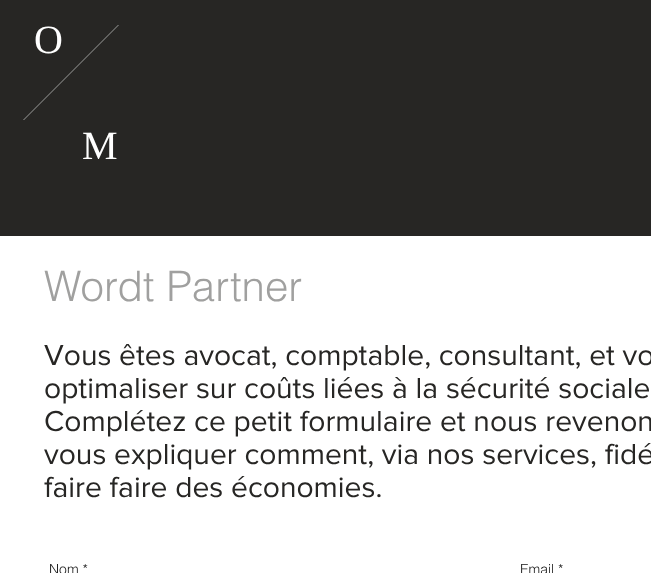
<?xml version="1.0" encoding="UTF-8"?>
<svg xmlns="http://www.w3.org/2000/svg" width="651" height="573">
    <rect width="100%" height="100%" fill="#FFFFFF"/>
    <rect x="0" y="0" width="651" height="236" fill="#272624"/>
    <text x="34" y="53" font-family="Liberation Serif" font-size="40" fill="#FFFFFF">O</text>
    <path d="M 119 25 L 24 120 H 23 L 118 25 Z" fill="#999997"/>
    <text x="82" y="159" font-family="Liberation Serif" font-size="40" fill="#FFFFFF">M</text>
    <text x="44" y="301" font-family="helvetica" font-size="42" font-weight="300" fill="#A0A09F">Wordt Partner</text>
    <text font-family="'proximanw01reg'" font-size="30" fill="#272624">
        <tspan x="44" y="365">Vous êtes avocat, comptable, consultant, et vo</tspan>
        <tspan x="44" y="398">optimaliser sur coûts liées à la sécurité sociale</tspan>
        <tspan x="44" y="431">Complétez ce petit formulaire et nous revenon</tspan>
        <tspan x="44" y="464">vous expliquer comment, via nos services, fidé</tspan>
        <tspan x="44" y="497">faire faire des économies.</tspan>
    </text>
    <text x="49" y="574" font-family="helvetica" font-size="14" font-weight="300" fill="#141414">Nom *</text>
    <text x="520" y="574" font-family="helvetica" font-size="14" font-weight="300" fill="#141414">Email *</text>
</svg>
